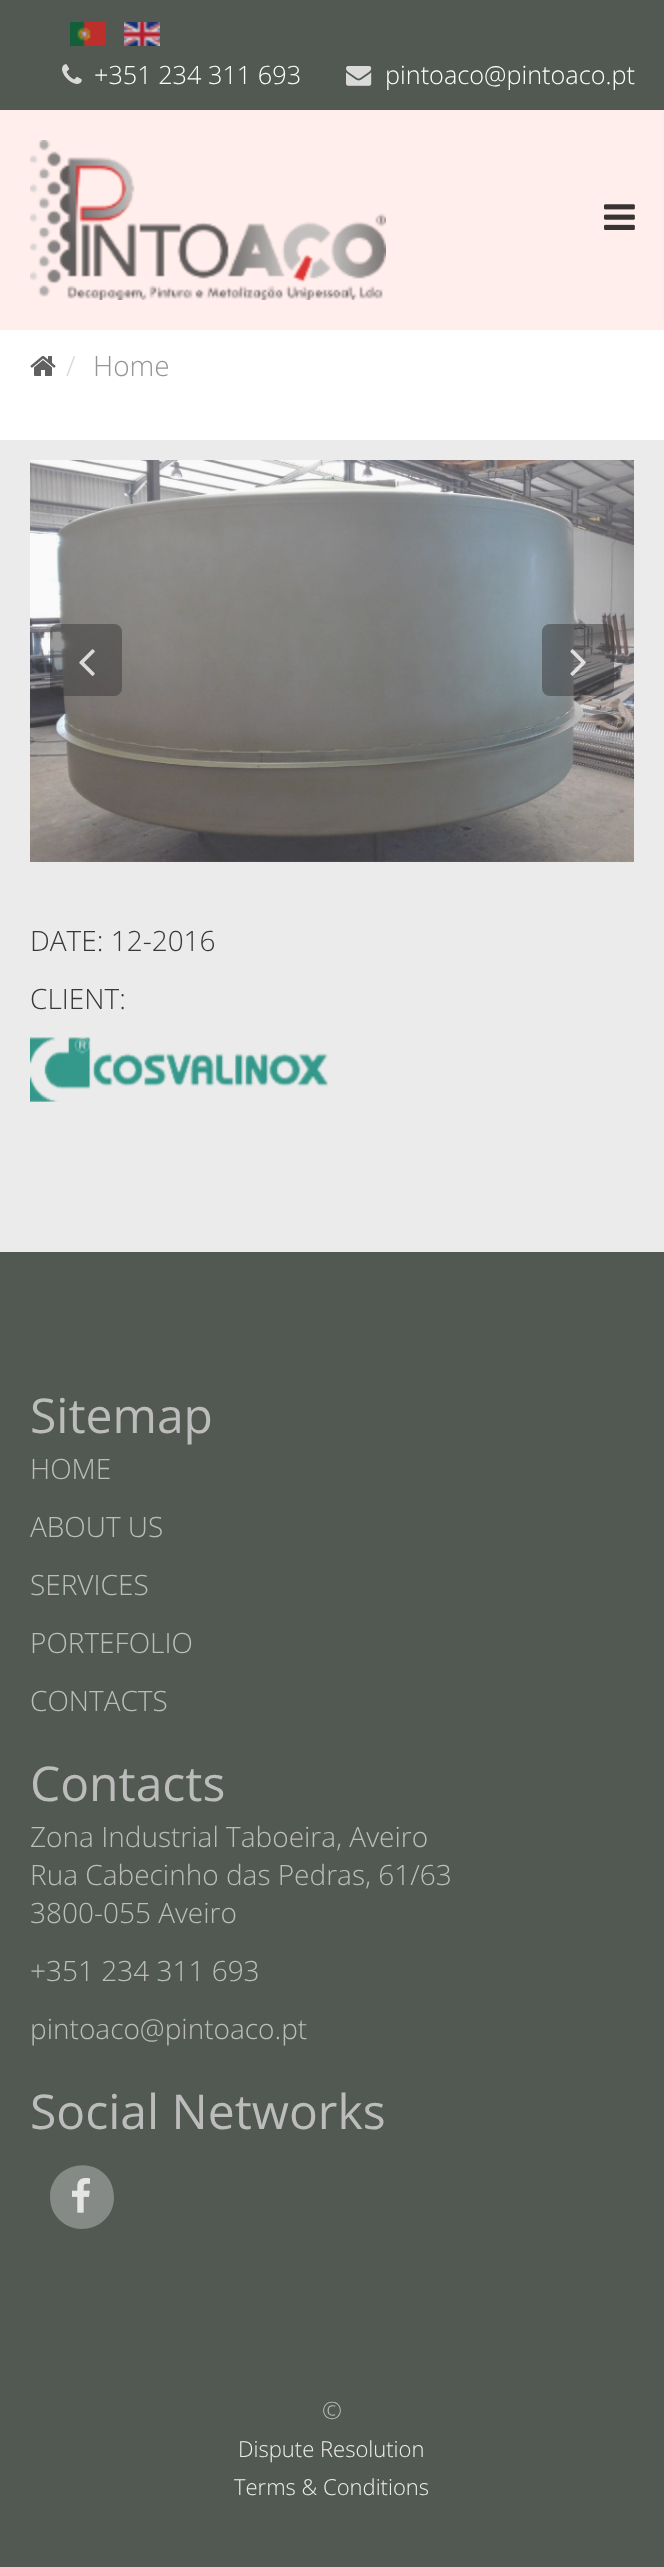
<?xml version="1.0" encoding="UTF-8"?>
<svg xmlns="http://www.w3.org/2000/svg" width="664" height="2567">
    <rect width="100%" height="100%" fill="#FFFFFF"/>
    <rect x="0" y="0" width="664" height="110" fill="#525852"/>
    <image x="70" y="22" width="36" height="24" href="img_01.png"/>
    <image x="124" y="22" width="36" height="24" href="img_02.png"/>
    <image x="62" y="64" width="20" height="20" href="img_03.png"/>
    <text x="94" y="84" font-family="Open Sans" font-size="25.25" font-weight="300" fill="#FFFFFF">+351 234 311 693</text>
    <image x="346" y="66" width="26" height="20" href="img_04.png"/>
    <text x="385" y="84" font-family="Open Sans" font-size="25.25" font-weight="300" fill="#FFFFFF">pintoaco@pintoaco.pt</text>
    <rect x="0" y="110" width="664" height="220" fill="#FFEEEB"/>
    <image x="30" y="140" width="356" height="160" href="img_05.png"/>
    <image x="604" y="204" width="31" height="26" href="img_06.png"/>
    <image x="30" y="356" width="26" height="20" href="img_07.png"/>
    <text x="66" y="376" font-family="Open Sans" font-size="28" font-weight="300" fill="#D7D7D7">/</text>
    <text x="93" y="376" font-family="Open Sans" font-size="28" font-weight="300" fill="#959595">Home</text>
    <rect x="0" y="440" width="664" height="812" fill="#EBEBEB"/>
    <image x="30" y="460" width="604" height="402" href="img_08.png"/>
    <rect x="50" y="624" width="72" height="72" rx="8" fill="#383838" fill-opacity="0.5"/>
    <image x="79" y="649" width="16" height="27" href="img_09.png"/>
    <rect x="542" y="624" width="72" height="72" rx="8" fill="#383838" fill-opacity="0.5"/>
    <image x="570" y="649" width="16" height="27" href="img_10.png"/>
    <text x="30" y="951" font-family="Open Sans" font-size="28" font-weight="300" fill="#383838">DATE: 12-2016</text>
    <text x="30" y="1009" font-family="Open Sans" font-size="28" font-weight="300" fill="#383838">CLIENT:</text>
    <image x="30" y="1037" width="298" height="65" href="img_11.png"/>
    <rect x="0" y="1252" width="664" height="1096" fill="#525952"/>
    <text x="30" y="1433" font-family="Open Sans" font-size="48" fill="#BCBCBC">Sitemap</text>
    <text x="30" y="1479" font-family="Open Sans" font-size="28" font-weight="300" fill="#BCBCBC">HOME</text>
    <text x="30" y="1537" font-family="Open Sans" font-size="28" font-weight="300" fill="#BCBCBC">ABOUT US</text>
    <text x="30" y="1595" font-family="Open Sans" font-size="28" font-weight="300" fill="#BCBCBC">SERVICES</text>
    <text x="30" y="1653" font-family="Open Sans" font-size="28" font-weight="300" fill="#BCBCBC">PORTEFOLIO</text>
    <text x="30" y="1711" font-family="Open Sans" font-size="28" font-weight="300" fill="#BCBCBC">CONTACTS</text>
    <text x="30" y="1801" font-family="Open Sans" font-size="48" fill="#BCBCBC">Contacts</text>
    <text font-family="Open Sans" font-size="28" font-weight="300" fill="#BCBCBC">
        <tspan x="30" y="1847">Zona Industrial Taboeira, Aveiro</tspan>
        <tspan x="30" y="1885">Rua Cabecinho das Pedras, 61/63</tspan>
        <tspan x="30" y="1923">3800-055 Aveiro</tspan>
    </text>
    <text x="30" y="1981" font-family="Open Sans" font-size="28" font-weight="300" fill="#BCBCBC">+351 234 311 693</text>
    <text x="30" y="2039" font-family="Open Sans" font-size="28" font-weight="300" fill="#BCBCBC">pintoaco@pintoaco.pt</text>
    <text x="30" y="2129" font-family="Open Sans" font-size="48" fill="#BCBCBC">Social Networks</text>
    <path d="M 110 2181 C 113 2187 114 2193 114 2199 C 112 2231 70 2240 54 2213 C 51 2208 50 2202 50 2195 C 52 2164 94 2154 110 2181 Z" fill="#868A86"/>
    <image x="72" y="2178" width="18" height="35" href="img_12.png"/>
    <rect x="0" y="2348" width="664" height="219" fill="#525852"/>
    <text x="322" y="2419" font-family="Open Sans" font-size="24" font-weight="300" fill="#BCBCBC">©</text>
    <text x="238" y="2457" font-family="Open Sans" font-size="22" font-weight="300" fill="#EEEEEE">Dispute Resolution</text>
    <text x="234" y="2495" font-family="Open Sans" font-size="22" font-weight="300" fill="#EEEEEE">Terms &amp; Conditions</text>
</svg>
